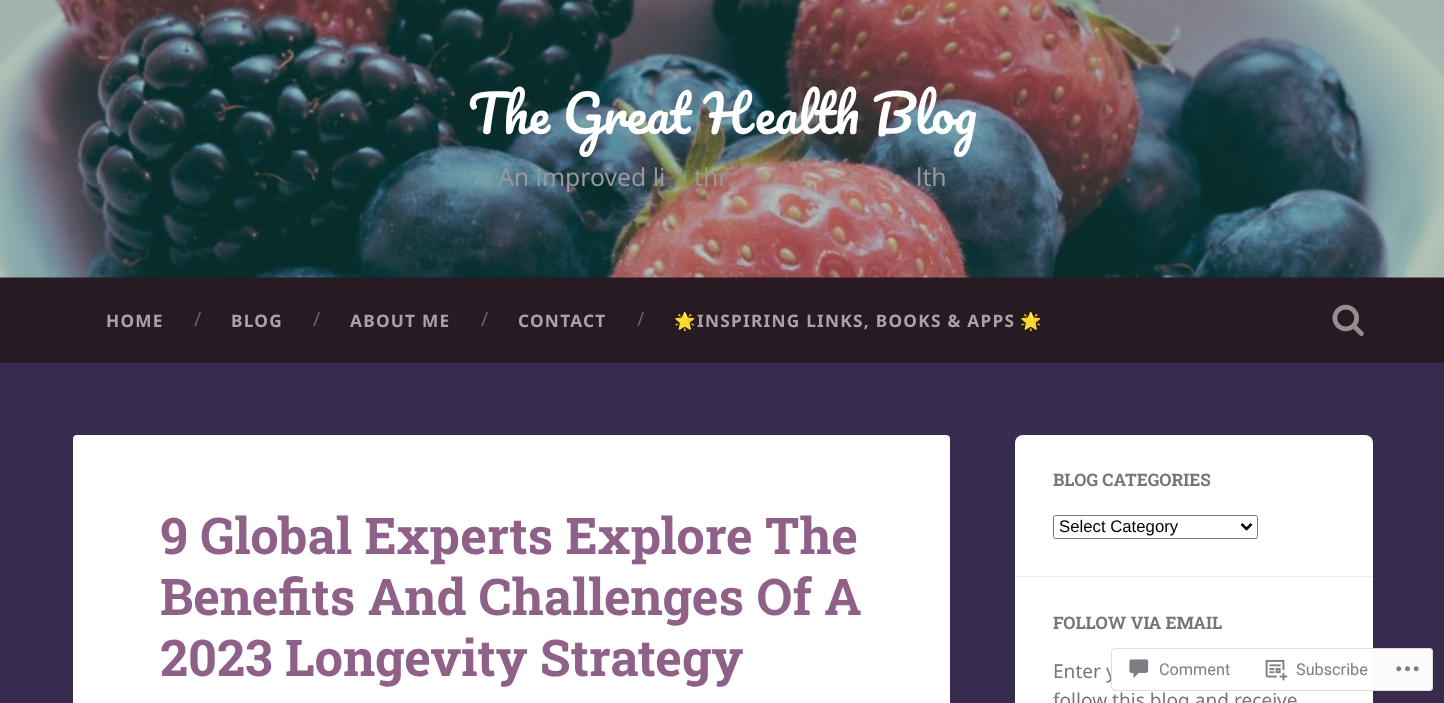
<?xml version="1.0" encoding="UTF-8"?>
<svg xmlns="http://www.w3.org/2000/svg" width="1444" height="703">
    <rect width="100%" height="100%" fill="#372B4F"/>
    <rect x="0" y="277" width="1444" height="1" fill="#251B22"/>
    <image x="0" y="0" width="1444" height="278" href="img_01.png"/>
    <text x="468" y="134" font-family="Pacifico" font-size="50.6" fill="#FFFFFF">The Great Health Blog</text>
    <text x="498" y="186" font-family="Noto Sans" font-size="24.75" fill="#999999">An improved li</text>
    <text x="694" y="186" font-family="Noto Sans" font-size="24.75" fill="#999999">thr</text>
    <text x="916" y="186" font-family="Noto Sans" font-size="24.75" fill="#999999">lth</text>
    <rect x="0" y="278" width="1444" height="85" fill="#281A23"/>
    <text x="106" y="327" font-family="Noto Sans" font-size="17.25" font-weight="700" letter-spacing="1.25" fill="#A9A3A7">HOME</text>
    <text x="194" y="326" font-family="Noto Sans" font-size="20" fill="#695F65">/</text>
    <text x="231" y="327" font-family="Noto Sans" font-size="17.25" font-weight="700" letter-spacing="1.25" fill="#A9A3A7">BLOG</text>
    <text x="313" y="326" font-family="Noto Sans" font-size="20" fill="#695F65">/</text>
    <text x="350" y="327" font-family="Noto Sans" font-size="17.25" font-weight="700" letter-spacing="1.25" fill="#A9A3A7">ABOUT ME</text>
    <text x="481" y="326" font-family="Noto Sans" font-size="20" fill="#695F65">/</text>
    <text x="518" y="327" font-family="Noto Sans" font-size="17.25" font-weight="700" letter-spacing="1.25" fill="#A9A3A7">CONTACT</text>
    <text x="637" y="326" font-family="Noto Sans" font-size="20" fill="#695F65">/</text>
    <text x="674" y="327" font-family="Noto Color Emoji" font-size="17.25" font-weight="700" letter-spacing="1.25" fill="#A9A3A7">🌟</text>
    <text x="697" y="327" font-family="Noto Sans" font-size="17.25" font-weight="700" letter-spacing="1.25" fill="#A9A3A7">INSPIRING LINKS, BOOKS &amp; APPS</text>
    <text x="1020" y="327" font-family="Noto Color Emoji" font-size="17.25" font-weight="700" letter-spacing="1.25" fill="#A9A3A7">🌟</text>
    <image x="1332" y="304" width="32" height="32" href="img_02.png"/>
    <rect x="73" y="435" width="877" height="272" rx="4" fill="#FFFFFF"/>
    <text font-family="Roboto Slab" font-size="50.6" font-weight="700" fill="#8F6189">
        <tspan x="160" y="554">9 Global Experts Explore The</tspan>
        <tspan x="160" y="615">Benefits And Challenges Of A</tspan>
        <tspan x="160" y="676">2023 Longevity Strategy</tspan>
    </text>
    <rect x="1015" y="435" width="358" height="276" rx="8" fill="#FFFFFF"/>
    <text x="1053" y="486" font-family="Roboto Slab" font-size="17.25" font-weight="700" fill="#767676">BLOG CATEGORIES</text>
    <rect x="1053.5" y="515.5" width="204" height="23" rx="2" fill="none" stroke="#767676"/>
    <path d="M 1241.5 524 L 1246.5 529 L 1251.5 524" fill="none" stroke="#000000" stroke-width="2.5"/>
    <text x="1059" y="532" font-family="Liberation Sans" font-size="16.75" fill="#000000">Select Category</text>
    <rect x="1015" y="576" width="358" height="1" fill="#EEEEEE"/>
    <text x="1053" y="629" font-family="Roboto Slab" font-size="17.25" font-weight="700" fill="#767676">FOLLOW VIA EMAIL</text>
    <text font-family="Noto Sans" font-size="19.1" fill="#767676">
        <tspan x="1053" y="678">Enter y</tspan>
        <tspan x="1053" y="707">follow this blog and receive</tspan>
    </text>
    <rect x="1111" y="648" width="322" height="43" rx="4" fill="#FFFFFF" fill-opacity="0.98"/>
    <rect x="1111.5" y="648.5" width="321" height="42" rx="3.5" fill="none" stroke="#DCDCDE" stroke-opacity="0.98"/>
    <image x="1129" y="659" width="20" height="19" href="img_03.png"/>
    <text x="1159" y="675" font-family="Roboto" font-size="16.25" fill="#7B7F84">Comment</text>
    <image x="1265" y="660" width="23" height="21" href="img_04.png"/>
    <text x="1296" y="675" font-family="Roboto" font-size="16.25" fill="#7B7F84">Subscribe</text>
    <image x="1396" y="666" width="23" height="6" href="img_05.png"/>
</svg>
